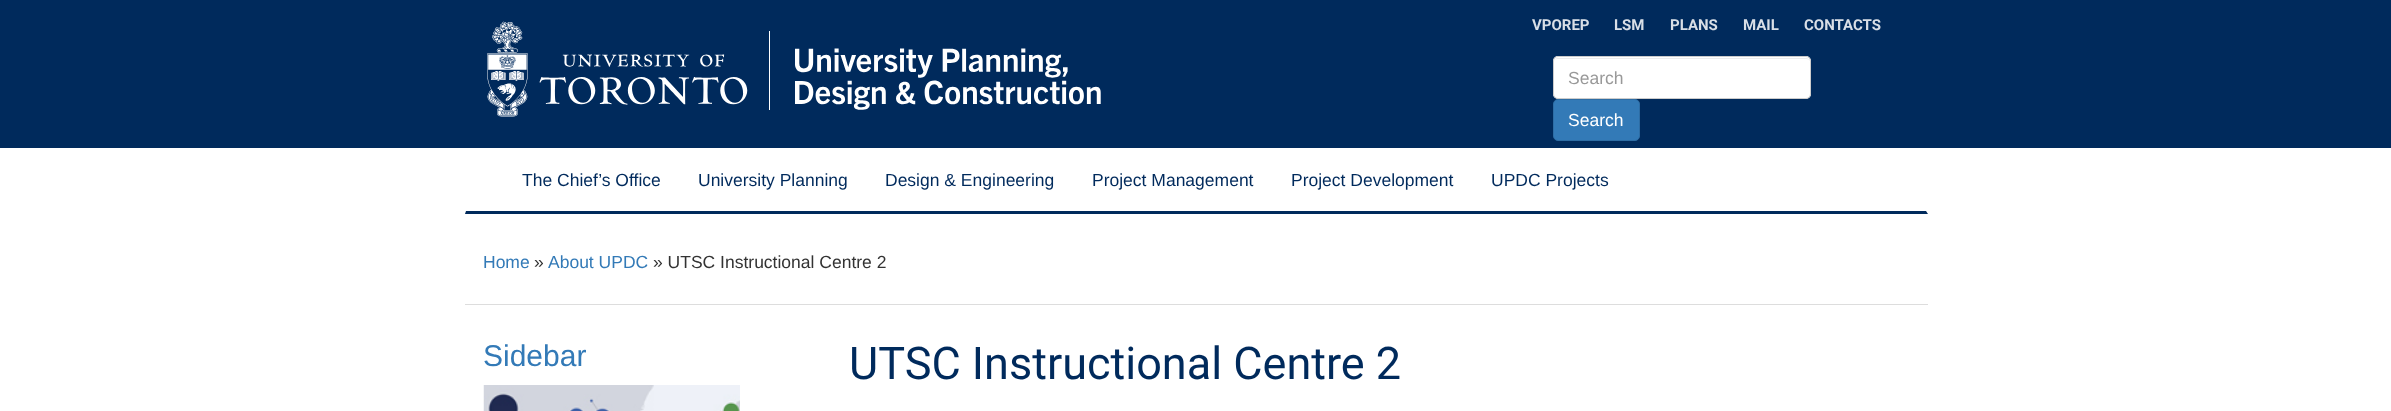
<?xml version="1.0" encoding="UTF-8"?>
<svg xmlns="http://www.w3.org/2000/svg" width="2391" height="411">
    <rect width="100%" height="100%" fill="#FFFFFF"/>
    <rect x="0" y="0" width="2391" height="148" fill="#002A5C"/>
    <image x="487" y="21" width="261" height="96" href="img_01.png"/>
    <rect x="769" y="31" width="1" height="79" fill="#FFFFFF"/>
    <image x="795" y="48" width="306" height="62" href="img_02.png"/>
    <text x="1532" y="30" font-family="Roboto" font-size="15" font-weight="700" fill="#D9DFE7">VPOREP</text>
    <text x="1614" y="30" font-family="Roboto" font-size="15" font-weight="700" fill="#D9DFE7">LSM</text>
    <text x="1670" y="30" font-family="Roboto" font-size="15" font-weight="700" fill="#D9DFE7">PLANS</text>
    <text x="1743" y="30" font-family="Roboto" font-size="15" font-weight="700" fill="#D9DFE7">MAIL</text>
    <text x="1804" y="30" font-family="Roboto" font-size="15" font-weight="700" fill="#D9DFE7">CONTACTS</text>
    <rect x="1553" y="56" width="258" height="43" rx="5" fill="#FFFFFF"/>
    <path d="M 1558 59 H 1806 C 1808 59 1810 60 1810 62 C 1810 60 1808 58 1806 58 H 1558 C 1556 58 1555 59 1554 60 C 1555 59 1556 59 1558 59 Z" fill="#ECECEC"/>
    <rect x="1553.5" y="56.5" width="257" height="42" rx="4.5" fill="none" stroke="#CCCCCC"/>
    <text x="1568" y="84" font-family="Liberation Sans" font-size="17.5" fill="#999999">Search</text>
    <rect x="1553.5" y="99.5" width="86" height="41" rx="4.5" fill="#337AB7" stroke="#2E6DA4"/>
    <text x="1568" y="126" font-family="Liberation Sans" font-size="17.5" fill="#FFFFFF">Search</text>
    <path d="M 1928 214 H 465 L 466 211 H 1926 Z" fill="#002A5C"/>
    <text x="522" y="186" font-family="Liberation Sans" font-size="17.5" fill="#002A5C">The Chief’s Office</text>
    <text x="698" y="186" font-family="Liberation Sans" font-size="17.5" fill="#002A5C">University Planning</text>
    <text x="885" y="186" font-family="Liberation Sans" font-size="17.5" fill="#002A5C">Design &amp; Engineering</text>
    <text x="1092" y="186" font-family="Liberation Sans" font-size="17.5" fill="#002A5C">Project Management</text>
    <text x="1291" y="186" font-family="Liberation Sans" font-size="17.5" fill="#002A5C">Project Development</text>
    <text x="1491" y="186" font-family="Liberation Sans" font-size="17.5" fill="#002A5C">UPDC Projects</text>
    <rect x="465" y="304" width="1463" height="1" fill="#DDDDDD"/>
    <text x="483" y="268" font-family="Liberation Sans" font-size="17.5" fill="#337AB7">Home</text>
    <text x="534" y="268" font-family="Liberation Sans" font-size="17.5" fill="#333333">»</text>
    <text x="548" y="268" font-family="Liberation Sans" font-size="17.5" fill="#337AB7">About UPDC</text>
    <text x="653" y="268" font-family="Liberation Sans" font-size="17.5" fill="#333333">» UTSC Instructional Centre 2</text>
    <text x="483" y="366" font-family="Liberation Sans" font-size="30" fill="#337AB7">Sidebar</text>
    <image x="483" y="385" width="257" height="26" href="img_03.png"/>
    <text x="849" y="379" font-family="Roboto" font-size="45" fill="#002A5C">UTSC Instructional Centre 2</text>
</svg>
